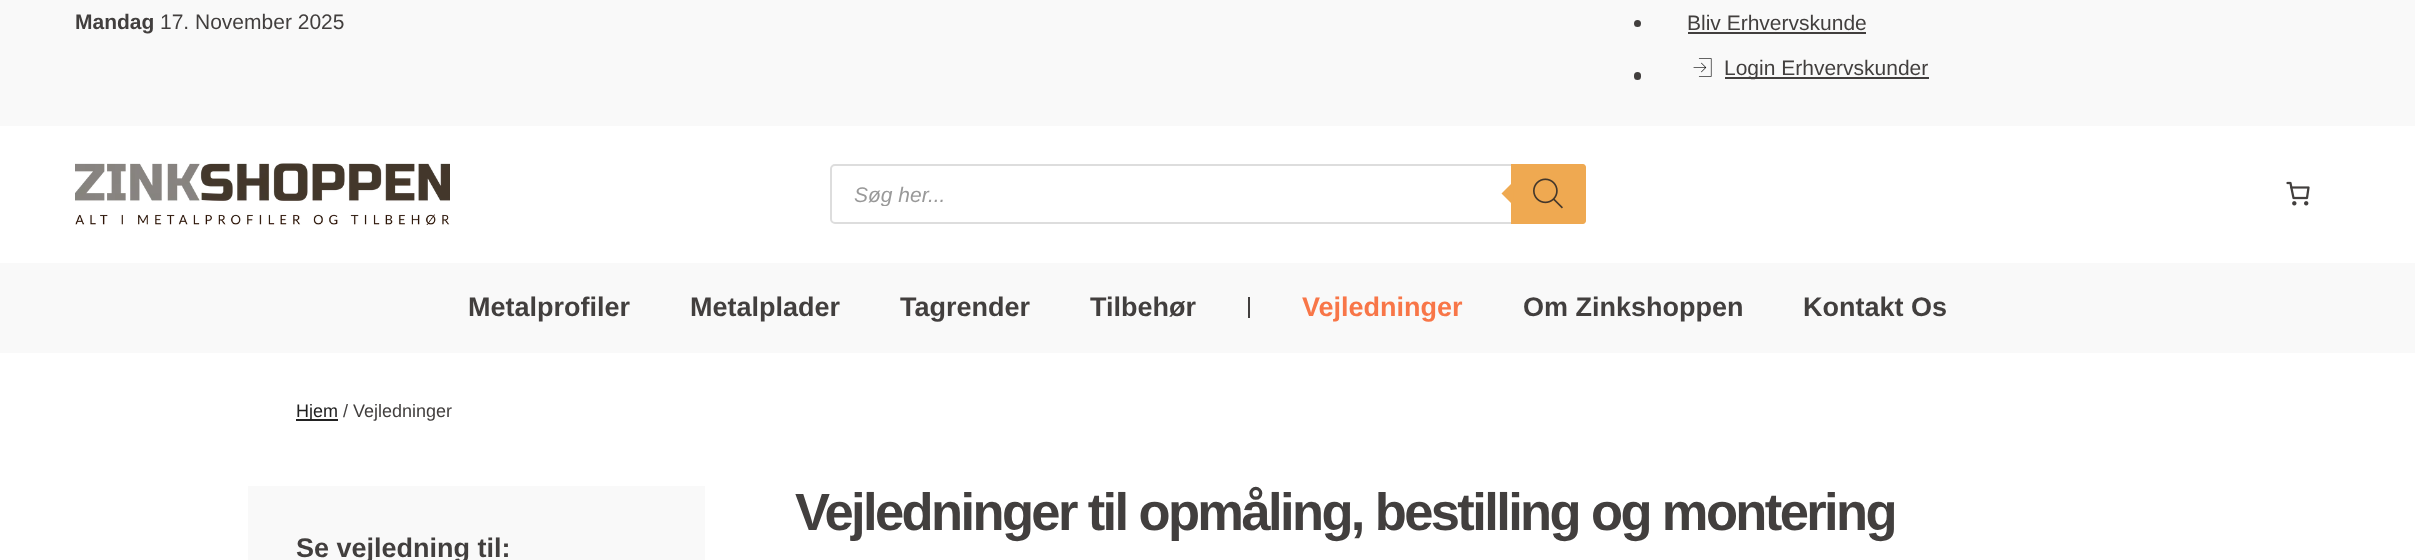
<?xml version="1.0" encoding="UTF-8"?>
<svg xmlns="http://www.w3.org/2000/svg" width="2415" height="560">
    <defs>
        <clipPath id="clip1"><rect x="854" y="182" width="708" height="24"/></clipPath>
    </defs>
    <rect width="100%" height="100%" fill="#FFFFFF"/>
    <rect x="0" y="0" width="2415" height="126" fill="#F9F9F9"/>
    <text x="75" y="29" font-family="Liberation Sans" font-size="21" font-weight="700" fill="#423F3E">Mandag</text>
    <text x="160" y="29" font-family="Liberation Sans" font-size="21" fill="#423F3E">17. November 2025</text>
    <circle cx="1637.5" cy="23.5" r="3.5" fill="#423F3E"/>
    <text x="1687" y="30" font-family="Liberation Sans" font-size="21" fill="#423F3E">Bliv Erhvervskunde</text>
    <rect x="1688" y="32" width="178" height="2" fill="#423F3E"/>
    <rect x="1634" y="72" width="7" height="8" rx="3.5" fill="#423F3E"/>
    <image x="1693" y="58" width="19" height="19" href="img_01.png"/>
    <rect x="1725" y="77" width="204" height="2" fill="#423F3E"/>
    <text x="1724" y="75" font-family="Liberation Sans" font-size="21" fill="#423F3E">Login Erhvervskunder</text>
    <image x="75" y="163" width="375" height="62" href="img_02.png"/>
    <rect x="831" y="165" width="754" height="58" rx="4" fill="none" stroke="#DDDDDD" stroke-width="2"/>
    <g clip-path="url(#clip1)">
        <text x="854" y="202" font-family="Liberation Sans" font-size="21" font-style="italic" fill="#999999">Søg her...</text>
    </g>
    <path d="M 1511 164 H 1583 C 1584.5 164 1586 165.5 1586 167 V 221 C 1586 222.5 1584.5 224 1583 224 H 1511 Z" fill="#EFA951"/>
    <path d="M 1513.5 181.5 V 205.5 L 1501.5 193.5 Z" fill="#EFA951"/>
    <image x="1533" y="178" width="30" height="31" href="img_03.png"/>
    <image x="2286" y="181" width="24" height="25" href="img_04.png"/>
    <rect x="0" y="263" width="2415" height="90" fill="#F9F9F9"/>
    <text x="468" y="316" font-family="Liberation Sans" font-size="27" font-weight="700" fill="#423F3E">Metalprofiler</text>
    <text x="690" y="316" font-family="Liberation Sans" font-size="27" font-weight="700" fill="#423F3E">Metalplader</text>
    <text x="900" y="316" font-family="Liberation Sans" font-size="27" font-weight="700" fill="#423F3E">Tagrender</text>
    <text x="1090" y="316" font-family="Liberation Sans" font-size="27" font-weight="700" fill="#423F3E">Tilbehør</text>
    <rect x="1248" y="297" width="2" height="21" fill="#423F3E"/>
    <text x="1302" y="316" font-family="Liberation Sans" font-size="27" font-weight="700" fill="#F87648">Vejledninger</text>
    <text x="1523" y="316" font-family="Liberation Sans" font-size="27" font-weight="700" fill="#423F3E">Om Zinkshoppen</text>
    <text x="1803" y="316" font-family="Liberation Sans" font-size="27" font-weight="700" fill="#423F3E">Kontakt Os</text>
    <rect x="296" y="419" width="42" height="2" fill="#222222"/>
    <text x="296" y="417" font-family="Liberation Sans" font-size="18" fill="#222222">Hjem</text>
    <text x="343" y="417" font-family="Liberation Sans" font-size="18" fill="#423F3E">/ Vejledninger</text>
    <text x="795" y="530" font-family="Liberation Sans" font-size="52.5" font-weight="700" letter-spacing="-2.62" fill="#423F3E">Vejledninger til opmåling, bestilling og montering</text>
    <rect x="248" y="486" width="457" height="74" fill="#F9F9F9"/>
    <text x="296" y="557" font-family="Liberation Sans" font-size="27" font-weight="700" fill="#423F3E">Se vejledning til:</text>
</svg>
